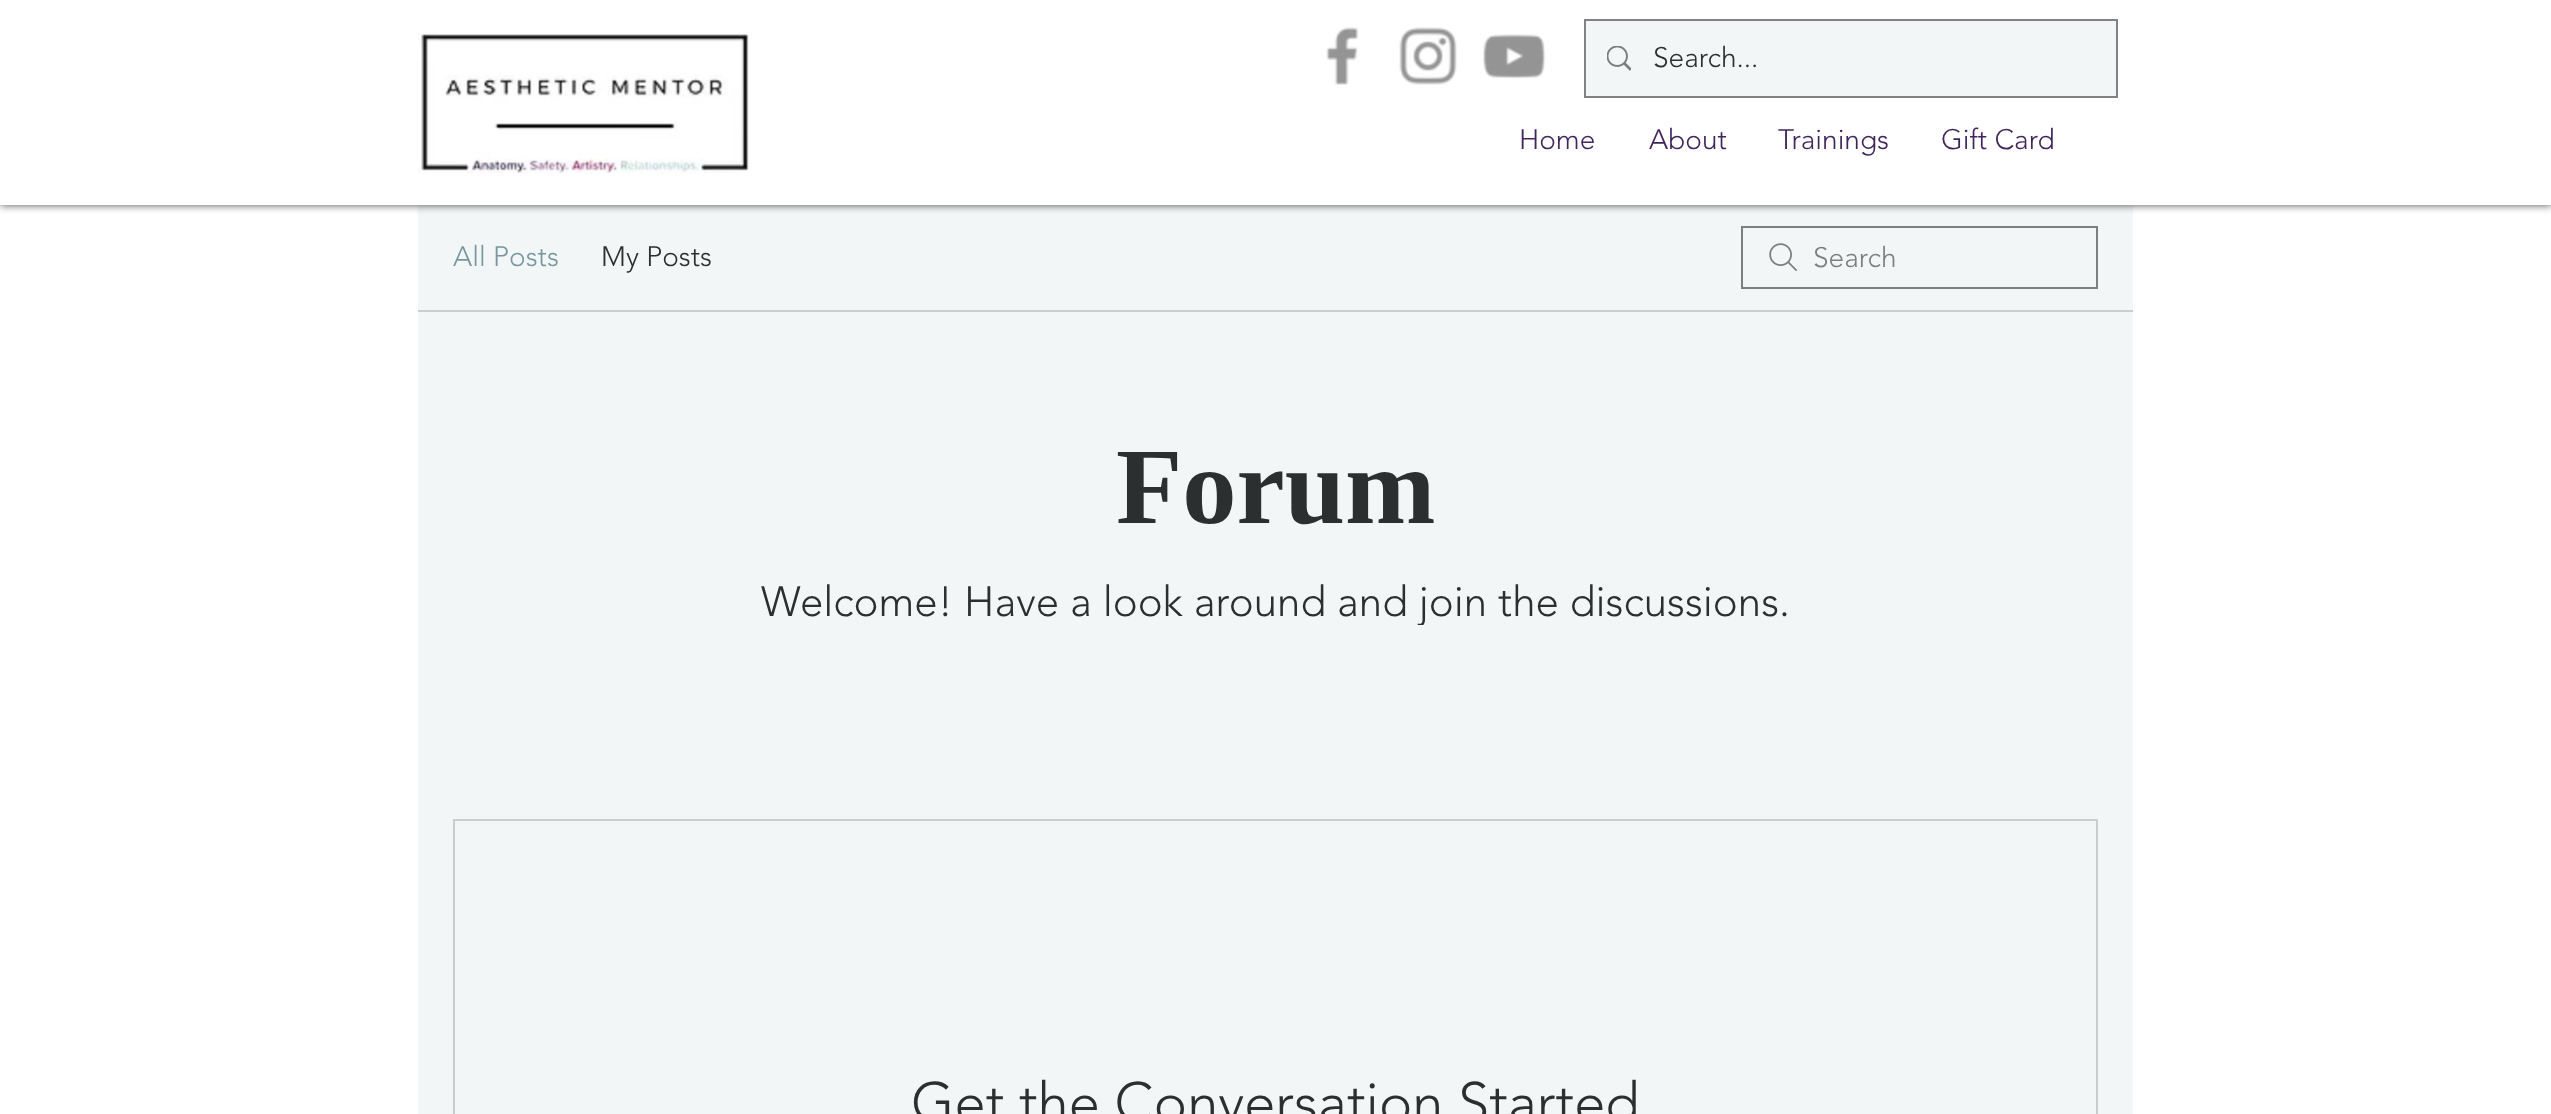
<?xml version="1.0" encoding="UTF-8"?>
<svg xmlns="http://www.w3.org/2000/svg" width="2551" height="1114">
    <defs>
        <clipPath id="clip1"><path d="M 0 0 H 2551 V 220 H 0 Z M 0 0 H 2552 V 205 H 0 Z" clip-rule="evenodd"/></clipPath>
        <filter id="blur1" x="-50%" y="-200%" width="200%" height="500%"><feGaussianBlur stdDeviation="4.5"/></filter>
        <clipPath id="clip2"><rect x="681" y="579" width="1190" height="46"/></clipPath>
    </defs>
    <rect width="100%" height="100%" fill="#FFFFFF"/>
    <rect x="418" y="205" width="1715" height="909" fill="#F2F6F7"/>
    <g clip-path="url(#clip1)">
        <rect x="0" y="0" width="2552" height="205" fill="#000000" fill-opacity="0.7" filter="url(#blur1)"/>
    </g>
    <rect x="0" y="204" width="2551" height="1" fill="#FFFFFF" fill-opacity="0.6"/>
    <image x="418" y="33" width="331" height="141" href="img_01.png"/>
    <image x="1326" y="27" width="33" height="58" href="img_02.png"/>
    <image x="1399" y="27" width="58" height="58" href="img_03.png"/>
    <image x="1483" y="34" width="63" height="45" href="img_04.png"/>
    <rect x="1585" y="20" width="532" height="77" fill="none" stroke="#808283" stroke-width="2"/>
    <rect x="1586" y="21" width="530" height="75" fill="#F2F6F7"/>
    <image x="1607" y="46" width="24" height="25" href="img_05.png"/>
    <text x="1653" y="67" font-family="'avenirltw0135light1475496'" font-size="28" font-weight="300" fill="#2C2F30">Search...</text>
    <text x="1519" y="149" font-family="'avenirltw0135light1475496'" font-size="28" font-weight="300" fill="#41255D">Home</text>
    <text x="1649" y="149" font-family="'avenirltw0135light1475496'" font-size="28" font-weight="300" fill="#41255D">About</text>
    <text x="1778" y="149" font-family="'avenirltw0135light1475496'" font-size="28" font-weight="300" fill="#41255D">Trainings</text>
    <text x="1941" y="149" font-family="'avenirltw0135light1475496'" font-size="28" font-weight="300" fill="#41255D">Gift Card</text>
    <rect x="418" y="310" width="1715" height="2" fill="#CACECF"/>
    <text x="453" y="266" font-family="'avenirltw0135light1475496'" font-size="28" font-weight="300" fill="#78979E">All Posts</text>
    <text x="601" y="266" font-family="'avenirltw0135light1475496'" font-size="28" font-weight="300" fill="#2C2F30">My Posts</text>
    <image x="1769" y="243" width="29" height="28" href="img_06.png"/>
    <rect x="1742" y="227" width="355" height="61" fill="none" stroke="#7B7F80" stroke-width="2"/>
    <text x="1813" y="267" font-family="'avenirltw0135light1475496'" font-size="28" font-weight="300" fill="#7B7F80">Search</text>
    <text x="1116" y="523" font-family="Liberation Serif" font-size="108.5" font-weight="700" fill="#2C2F30">Forum</text>
    <g clip-path="url(#clip2)">
        <text x="761" y="616" font-family="'avenirltw0135light1475496'" font-size="42" font-weight="300" fill="#2C2F30">Welcome! Have a look around and join the discussions.</text>
    </g>
    <rect x="454" y="820" width="1643" height="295" fill="none" stroke="#CACECF" stroke-width="2"/>
    <text x="911" y="1122" font-family="'avenirltw0135light1475496'" font-size="56" font-weight="300" fill="#2C2F30">Get the Conversation Started</text>
</svg>
